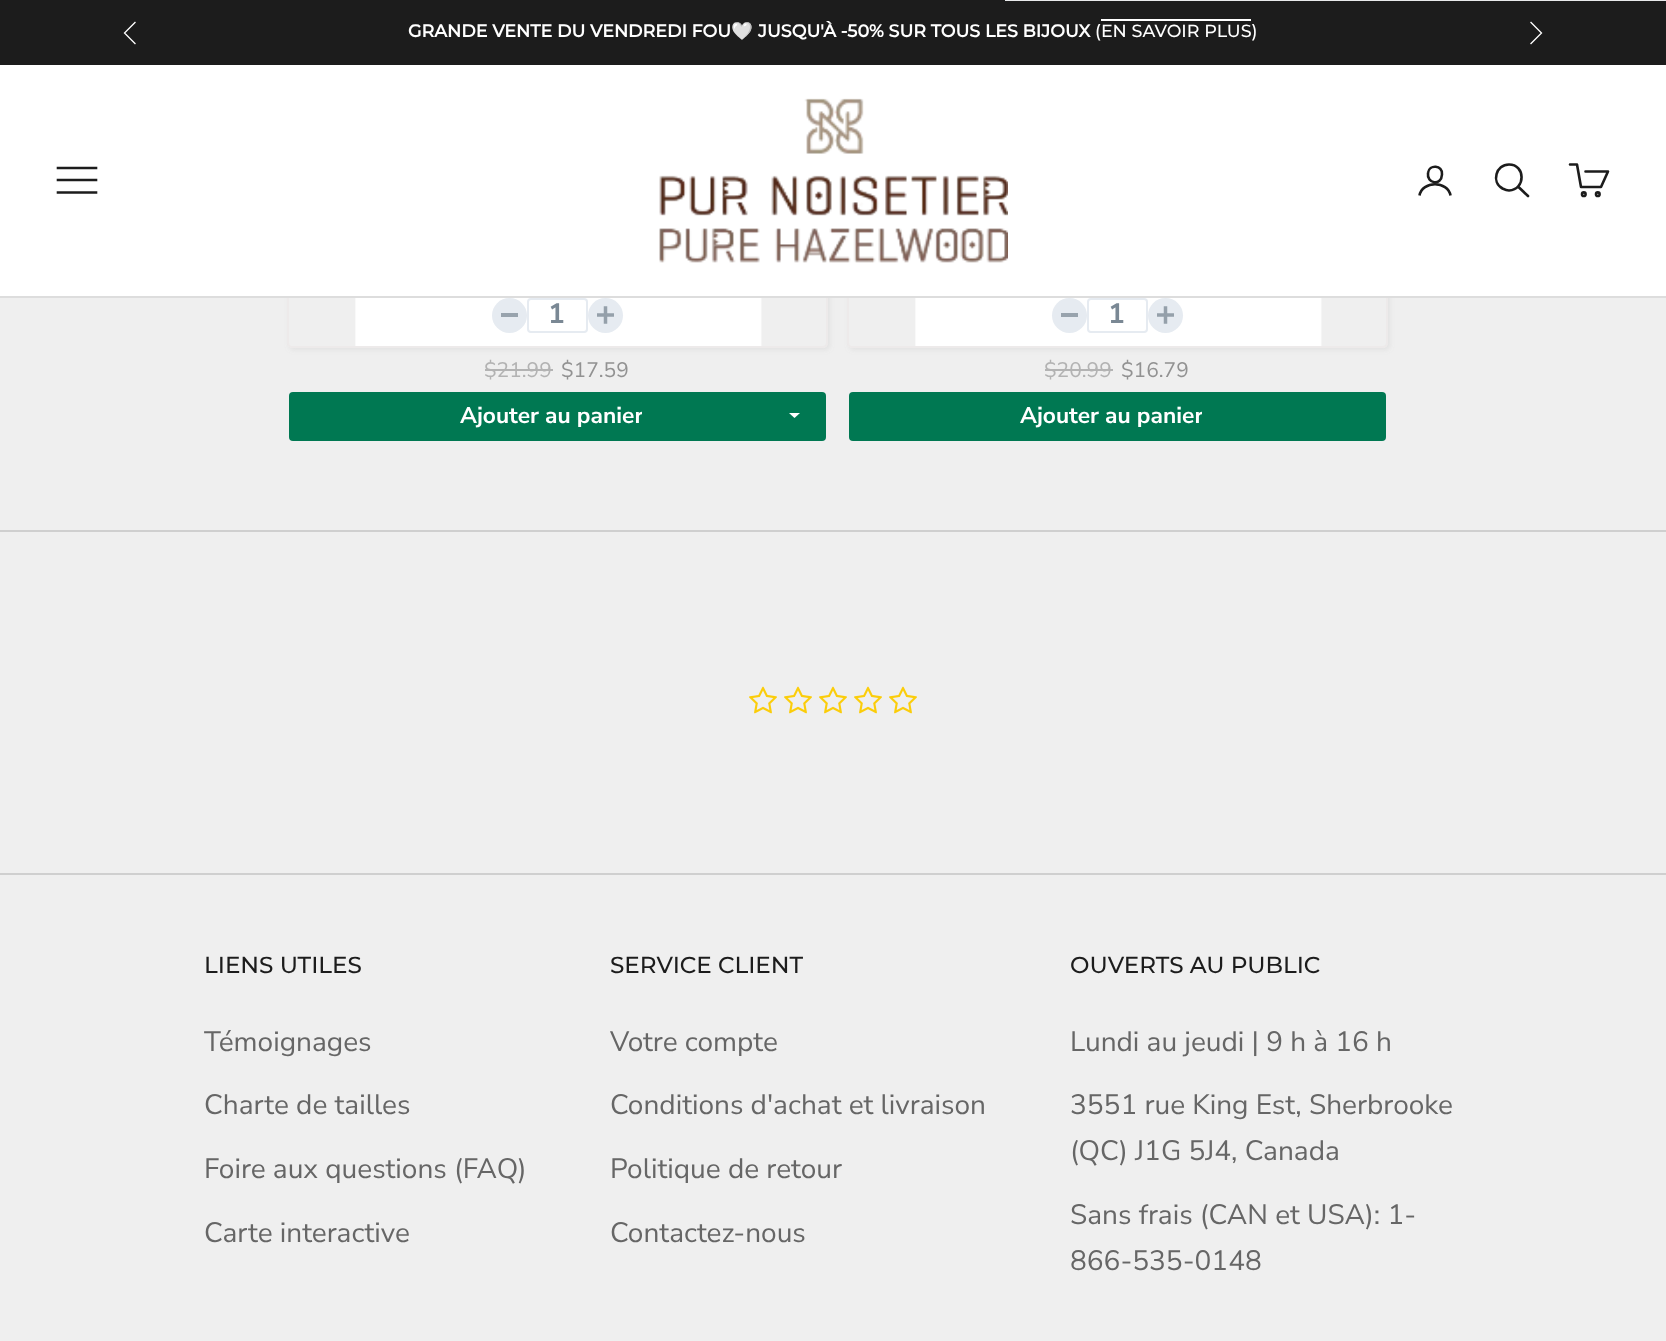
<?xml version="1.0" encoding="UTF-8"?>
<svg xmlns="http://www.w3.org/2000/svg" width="1666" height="1341">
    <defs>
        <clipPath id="clip1"><path d="M 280 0 H 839 V 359 H 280 Z M 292 -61 H 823 C 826 -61 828 -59 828 -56 V 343 C 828 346 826 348 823 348 H 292 C 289 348 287 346 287 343 V -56 C 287 -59 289 -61 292 -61 Z" clip-rule="evenodd"/></clipPath>
        <filter id="blur1" x="-50%" y="-200%" width="200%" height="500%"><feGaussianBlur stdDeviation="2.5"/></filter>
        <clipPath id="clip2"><path d="M 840 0 H 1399 V 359 H 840 Z M 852 -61 H 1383 C 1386 -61 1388 -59 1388 -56 V 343 C 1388 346 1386 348 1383 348 H 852 C 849 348 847 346 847 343 V -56 C 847 -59 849 -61 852 -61 Z" clip-rule="evenodd"/></clipPath>
        <clipPath id="clip3"><rect x="460" y="401" width="182" height="31"/></clipPath>
        <clipPath id="clip4"><rect x="1020" y="401" width="182" height="31"/></clipPath>
    </defs>
    <rect width="100%" height="100%" fill="#EFEFEF"/>
    <g clip-path="url(#clip1)">
        <rect x="289" y="-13" width="541" height="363" rx="5" fill="#929292" fill-opacity="0.15" filter="url(#blur1)"/>
    </g>
    <rect x="288" y="-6" width="539" height="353" rx="4" fill="none" stroke="#E7DEDE" stroke-opacity="0.3" stroke-width="2"/>
    <g clip-path="url(#clip2)">
        <rect x="849" y="-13" width="541" height="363" rx="5" fill="#929292" fill-opacity="0.15" filter="url(#blur1)"/>
    </g>
    <rect x="848" y="-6" width="539" height="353" rx="4" fill="none" stroke="#E7DEDE" stroke-opacity="0.3" stroke-width="2"/>
    <rect x="0" y="0" width="1666" height="65" fill="#1C1C1C"/>
    <rect x="1005" y="0" width="661" height="1" fill="#E8E9EB"/>
    <path d="M 135 22.5 L 124.5 33 L 135 43.5" fill="none" stroke="#FFFFFF" stroke-width="1.3" stroke-linecap="square"/>
    <rect x="1101" y="19" width="150" height="2" fill="#FFFFFF"/>
    <text x="408" y="37" font-family="Montserrat" font-size="17.5" font-weight="700" fill="#FFFFFF">GRANDE VENTE DU VENDREDI FOU</text>
    <text x="731" y="37" font-family="Noto Color Emoji" font-size="17.5" fill="#FFFFFF">🤍</text>
    <text x="758" y="37" font-family="Montserrat" font-size="17.5" font-weight="700" fill="#FFFFFF">JUSQU'À -50% SUR TOUS LES BIJOUX</text>
    <text x="1095" y="37" font-family="Montserrat" font-size="17.5" font-weight="500" fill="#FFFFFF">(EN SAVOIR PLUS)</text>
    <path d="M 1531 43.5 L 1541.5 33 L 1531 22.5" fill="none" stroke="#FFFFFF" stroke-width="1.3" stroke-linecap="square"/>
    <rect x="0" y="65" width="1666" height="231" fill="#FFFFFF"/>
    <rect x="0" y="296" width="1666" height="2" fill="#DDDDDD"/>
    <path d="M 58 192.5 H 96 M 58 180 H 96 M 58 168 H 96" fill="none" stroke="#1C1C1C" stroke-width="2.6" stroke-linecap="square"/>
    <image x="659" y="98" width="349" height="165" href="img_01.png"/>
    <path d="M 1442 174.5 C 1441.5 186 1426.5 184 1428 173 C 1429 164 1443 165 1442 174.5 Z" fill="none" stroke="#1C1C1C" stroke-width="2.6" stroke-linecap="round" stroke-linejoin="round"/>
    <path d="M 1419.5 195.5 C 1422 180.5 1448 180.5 1450.5 195.5" fill="none" stroke="#1C1C1C" stroke-width="2.6"/>
    <path d="M 1509 164.5 C 1496 164.5 1491 182 1502.5 188.5 C 1504.5 189.5 1507 190.5 1509 190.5 C 1526 189.5 1525.5 164.5 1509 164.5 Z" fill="none" stroke="#1C1C1C" stroke-width="2.6"/>
    <path d="M 1518.5 187 L 1528 196" fill="none" stroke="#1C1C1C" stroke-width="2.6" stroke-linecap="round"/>
    <path d="M 1585.5 171.5 H 1608 L 1601 187 H 1581 L 1577 164.5 H 1570" fill="none" stroke="#1C1C1C" stroke-width="2.6" stroke-linecap="round" stroke-linejoin="round"/>
    <circle cx="1583.8" cy="194.2" r="1.8" fill="none" stroke="#1C1C1C" stroke-width="2.6"/>
    <circle cx="1597.8" cy="194.2" r="1.8" fill="none" stroke="#1C1C1C" stroke-width="2.6"/>
    <image x="355" y="298" width="407" height="48" href="img_02.png"/>
    <circle cx="509.5" cy="315.5" r="17.5" fill="#E6EBF1"/>
    <rect x="501" y="313" width="17" height="4" fill="#98A3AD"/>
    <rect x="528" y="299" width="59" height="33" rx="3" fill="none" stroke="#E6EBF1" stroke-width="2"/>
    <text x="548" y="323" font-family="Nunito Sans" font-size="28" font-weight="700" fill="#7A8894">1</text>
    <circle cx="605.5" cy="315.5" r="17.5" fill="#E6EBF1"/>
    <image x="597" y="306" width="17" height="18" href="img_03.png"/>
    <text x="484" y="377" font-family="Nunito Sans" font-size="21" fill="#B3B3B3">$21.99</text>
    <rect x="485" y="369" width="68" height="2" fill="#B3B3B3"/>
    <text x="561" y="377" font-family="Nunito Sans" font-size="21" fill="#929292">$17.59</text>
    <rect x="289" y="392" width="537" height="49" rx="4" fill="#007852"/>
    <g clip-path="url(#clip3)">
        <text x="460" y="423" font-family="Nunito Sans" font-size="22.75" font-weight="700" fill="#FFFFFF">Ajouter au panier</text>
    </g>
    <path d="M 789 413 H 800 L 794.5 418 Z" fill="#FFFFFF"/>
    <image x="915" y="298" width="407" height="48" href="img_02.png"/>
    <circle cx="1069.5" cy="315.5" r="17.5" fill="#E6EBF1"/>
    <rect x="1061" y="313" width="17" height="4" fill="#98A3AD"/>
    <rect x="1088" y="299" width="59" height="33" rx="3" fill="none" stroke="#E6EBF1" stroke-width="2"/>
    <text x="1108" y="323" font-family="Nunito Sans" font-size="28" font-weight="700" fill="#7A8894">1</text>
    <circle cx="1165.5" cy="315.5" r="17.5" fill="#E6EBF1"/>
    <image x="1157" y="306" width="17" height="18" href="img_03.png"/>
    <text x="1044" y="377" font-family="Nunito Sans" font-size="21" fill="#B3B3B3">$20.99</text>
    <rect x="1045" y="369" width="68" height="2" fill="#B3B3B3"/>
    <text x="1121" y="377" font-family="Nunito Sans" font-size="21" fill="#929292">$16.79</text>
    <rect x="849" y="392" width="537" height="49" rx="4" fill="#007852"/>
    <g clip-path="url(#clip4)">
        <text x="1020" y="423" font-family="Nunito Sans" font-size="22.75" font-weight="700" fill="#FFFFFF">Ajouter au panier</text>
    </g>
    <rect x="0" y="530" width="1666" height="2" fill="#CFCFCF"/>
    <image x="749" y="686" width="28" height="28" href="img_04.png"/>
    <image x="784" y="686" width="28" height="28" href="img_04.png"/>
    <image x="819" y="686" width="28" height="28" href="img_04.png"/>
    <image x="854" y="686" width="28" height="28" href="img_04.png"/>
    <image x="889" y="686" width="28" height="28" href="img_04.png"/>
    <rect x="0" y="873" width="1666" height="2" fill="#CFCFCF"/>
    <text x="204" y="973" font-family="Montserrat" font-size="23.1" font-weight="500" fill="#1C1C1C">LIENS UTILES</text>
    <text x="204" y="1051" font-family="Nunito Sans" font-size="28" fill="#666666">Témoignages</text>
    <text x="204" y="1114" font-family="Nunito Sans" font-size="28" fill="#666666">Charte de tailles</text>
    <text x="204" y="1178" font-family="Nunito Sans" font-size="28" fill="#666666">Foire aux questions (FAQ)</text>
    <text x="204" y="1242" font-family="Nunito Sans" font-size="28" fill="#666666">Carte interactive</text>
    <text x="610" y="973" font-family="Montserrat" font-size="23.1" font-weight="500" fill="#1C1C1C">SERVICE CLIENT</text>
    <text x="610" y="1051" font-family="Nunito Sans" font-size="28" fill="#666666">Votre compte</text>
    <text x="610" y="1114" font-family="Nunito Sans" font-size="28" fill="#666666">Conditions d'achat et livraison</text>
    <text x="610" y="1178" font-family="Nunito Sans" font-size="28" fill="#666666">Politique de retour</text>
    <text x="610" y="1242" font-family="Nunito Sans" font-size="28" fill="#666666">Contactez-nous</text>
    <text x="1070" y="973" font-family="Montserrat" font-size="23.1" font-weight="500" fill="#1C1C1C">OUVERTS AU PUBLIC</text>
    <text x="1070" y="1051" font-family="Nunito Sans" font-size="28" fill="#666666">Lundi au jeudi | 9 h à 16 h</text>
    <text font-family="Nunito Sans" font-size="28" fill="#666666">
        <tspan x="1070" y="1114">3551 rue King Est, Sherbrooke</tspan>
        <tspan x="1070" y="1160">(QC) J1G 5J4, Canada</tspan>
    </text>
    <text font-family="Nunito Sans" font-size="28" fill="#666666">
        <tspan x="1070" y="1224">Sans frais (CAN et USA): 1-</tspan>
        <tspan x="1070" y="1270">866-535-0148</tspan>
    </text>
</svg>
